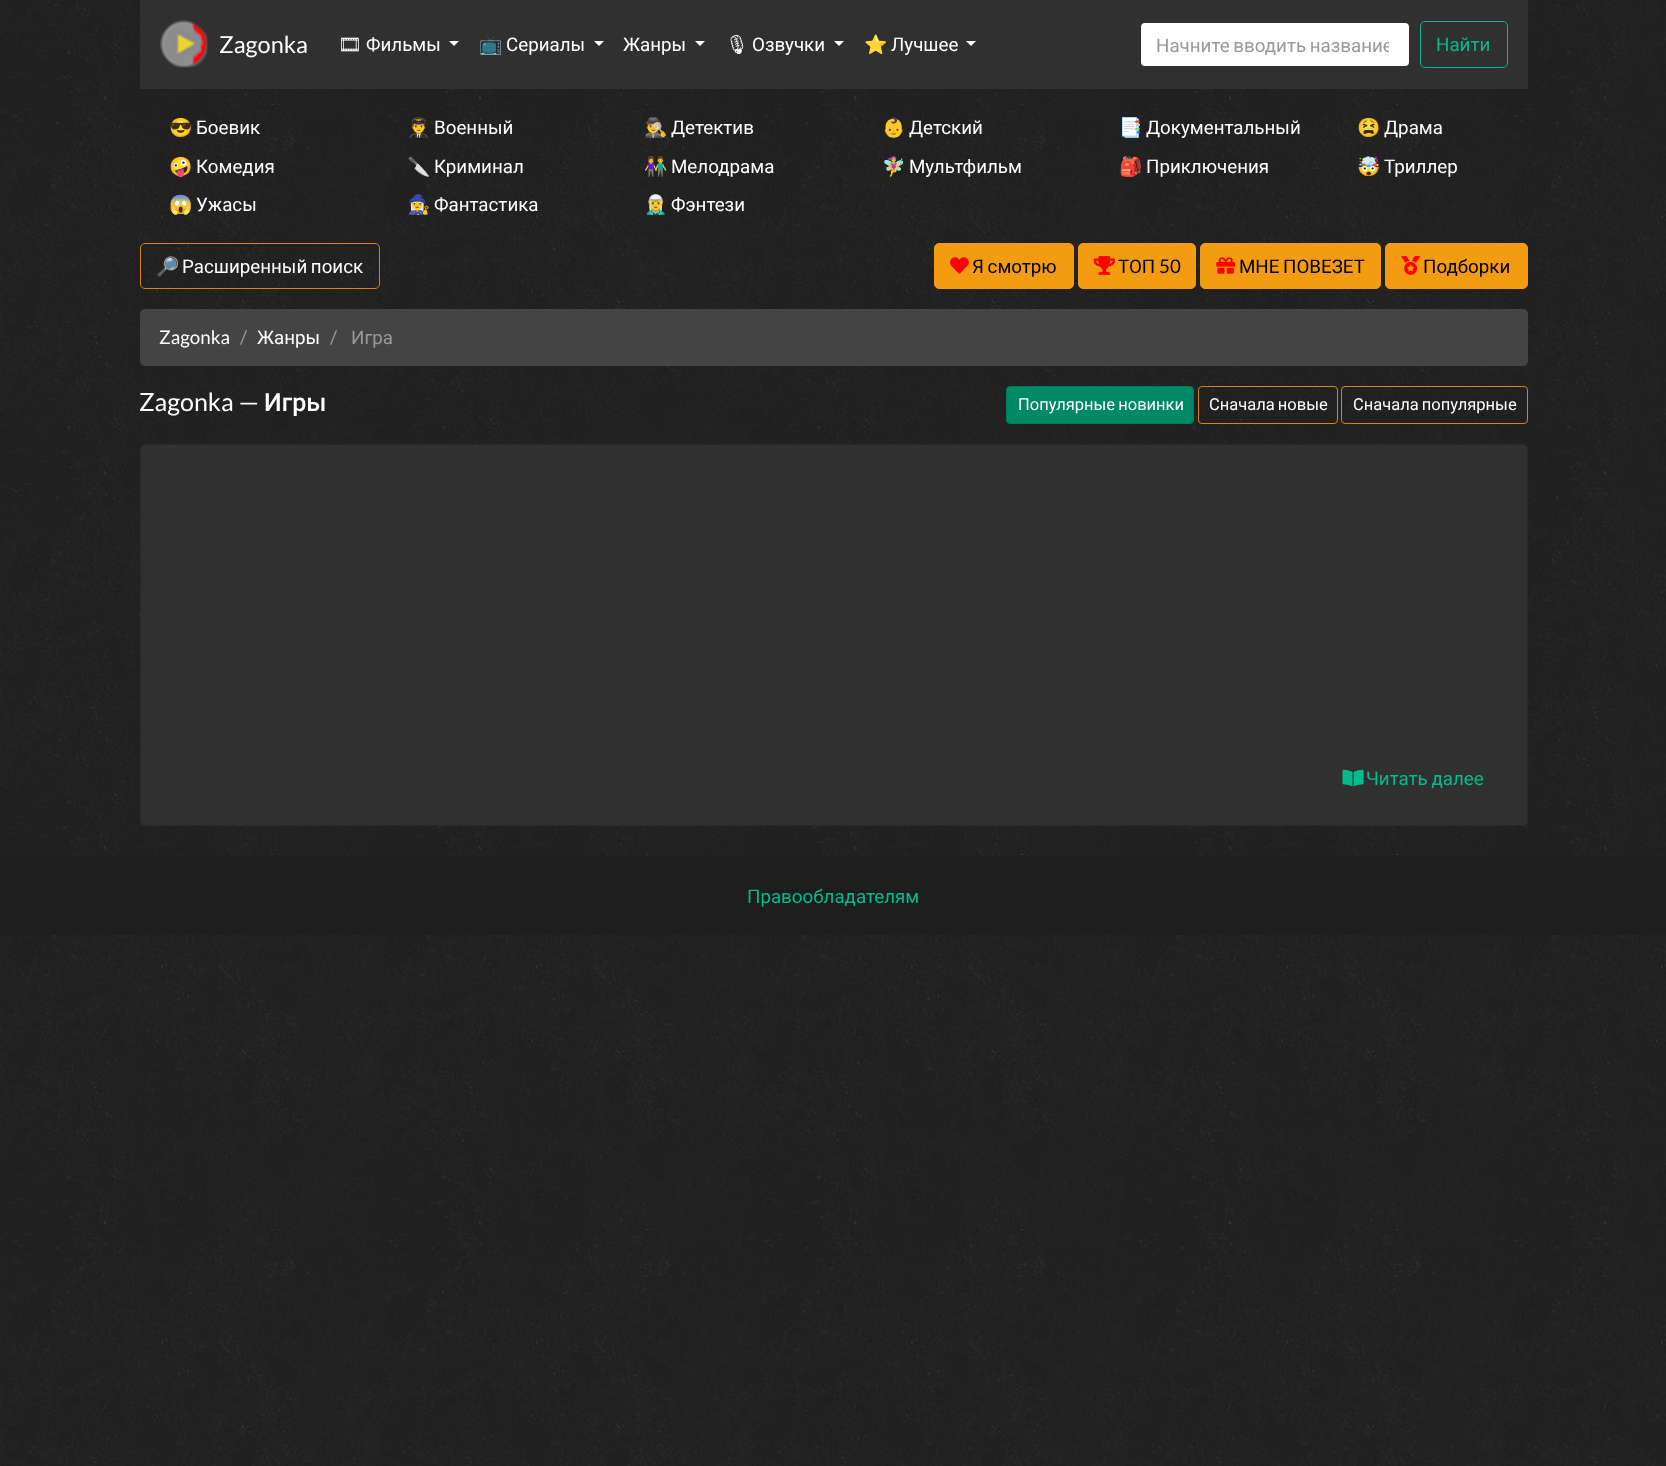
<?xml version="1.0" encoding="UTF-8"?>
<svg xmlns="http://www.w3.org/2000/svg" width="1666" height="1466">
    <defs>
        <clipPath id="clip1"><rect x="1156" y="33" width="233" height="23"/></clipPath>
    </defs>
    <rect width="100%" height="100%" fill="#FFFFFF"/>
    <image x="0" y="0" width="1666" height="1466" href="img_01.png"/>
    <rect x="140" y="0" width="1388" height="89" fill="#303030"/>
    <image x="160" y="20" width="48" height="48" href="img_02.png"/>
    <text x="219" y="53" font-family="Lato" font-size="23.5" fill="#FFFFFF">Zagonka</text>
    <text x="338" y="51" font-family="Noto Emoji" font-size="18.75" fill="#FFFFFF">🎞</text>
    <text x="366" y="51" font-family="Roboto" font-size="18.75" fill="#FFFFFF">Фильмы</text>
    <path d="M 449 41 H 459 L 454 46 Z" fill="#FFFFFF"/>
    <text x="479" y="51" font-family="Noto Color Emoji" font-size="18.75" fill="#FFFFFF">📺</text>
    <text x="506" y="51" font-family="Roboto" font-size="18.75" fill="#FFFFFF">Сериалы</text>
    <path d="M 594 41 H 604 L 599 46 Z" fill="#FFFFFF"/>
    <text x="623" y="51" font-family="Roboto" font-size="18.75" fill="#FFFFFF">Жанры</text>
    <path d="M 695 41 H 705 L 700 46 Z" fill="#FFFFFF"/>
    <text x="725" y="51" font-family="Noto Emoji" font-size="18.75" fill="#FFFFFF">🎙</text>
    <text x="752" y="51" font-family="Roboto" font-size="18.75" fill="#FFFFFF">Озвучки</text>
    <path d="M 834 41 H 844 L 839 46 Z" fill="#FFFFFF"/>
    <text x="864" y="51" font-family="Noto Color Emoji" font-size="18.75" fill="#FFFFFF">⭐</text>
    <text x="891" y="51" font-family="Roboto" font-size="18.75" fill="#FFFFFF">Лучшее</text>
    <path d="M 966 41 H 976 L 971 46 Z" fill="#FFFFFF"/>
    <rect x="1141" y="23" width="268" height="43" rx="4" fill="#FFFFFF"/>
    <g clip-path="url(#clip1)">
        <text x="1156" y="52" word-spacing="-1" font-family="Roboto" font-size="18.75" fill="#999999">Начните вводить название</text>
    </g>
    <rect x="1420.5" y="21.5" width="87" height="46" rx="4.5" fill="none" stroke="#00BC8C"/>
    <text x="1436" y="51" font-family="Roboto" font-size="18.75" fill="#00BC8C">Найти</text>
    <text x="169" y="134" font-family="Noto Color Emoji" font-size="18.75" fill="#FFFFFF">😎</text>
    <text x="196" y="134" font-family="Roboto" font-size="18.75" fill="#FFFFFF">Боевик</text>
    <text x="407" y="134" font-family="Noto Color Emoji" font-size="18.75" fill="#FFFFFF">👨‍✈️</text>
    <text x="434" y="134" font-family="Roboto" font-size="18.75" fill="#FFFFFF">Военный</text>
    <text x="644" y="134" font-family="Noto Color Emoji" font-size="18.75" fill="#FFFFFF">🕵️‍♂️</text>
    <text x="671" y="134" font-family="Roboto" font-size="18.75" fill="#FFFFFF">Детектив</text>
    <text x="882" y="134" font-family="Noto Color Emoji" font-size="18.75" fill="#FFFFFF">👶</text>
    <text x="909" y="134" font-family="Roboto" font-size="18.75" fill="#FFFFFF">Детский</text>
    <text x="1119" y="134" font-family="Noto Color Emoji" font-size="18.75" fill="#FFFFFF">📑</text>
    <text x="1146" y="134" font-family="Roboto" font-size="18.75" fill="#FFFFFF">Документальный</text>
    <text x="1357" y="134" font-family="Noto Color Emoji" font-size="18.75" fill="#FFFFFF">😫</text>
    <text x="1384" y="134" font-family="Roboto" font-size="18.75" fill="#FFFFFF">Драма</text>
    <text x="169" y="173" font-family="Noto Color Emoji" font-size="18.75" fill="#FFFFFF">🤪</text>
    <text x="196" y="173" font-family="Roboto" font-size="18.75" fill="#FFFFFF">Комедия</text>
    <text x="407" y="173" font-family="Noto Color Emoji" font-size="18.75" fill="#FFFFFF">🔪</text>
    <text x="434" y="173" font-family="Roboto" font-size="18.75" fill="#FFFFFF">Криминал</text>
    <text x="644" y="173" font-family="Noto Color Emoji" font-size="18.75" fill="#FFFFFF">👫</text>
    <text x="671" y="173" font-family="Roboto" font-size="18.75" fill="#FFFFFF">Мелодрама</text>
    <text x="882" y="173" font-family="Noto Color Emoji" font-size="18.75" fill="#FFFFFF">🧚‍♀️</text>
    <text x="909" y="173" font-family="Roboto" font-size="18.75" fill="#FFFFFF">Мультфильм</text>
    <text x="1119" y="173" font-family="Noto Color Emoji" font-size="18.75" fill="#FFFFFF">🎒</text>
    <text x="1146" y="173" font-family="Roboto" font-size="18.75" fill="#FFFFFF">Приключения</text>
    <text x="1357" y="173" font-family="Noto Color Emoji" font-size="18.75" fill="#FFFFFF">🤯</text>
    <text x="1384" y="173" font-family="Roboto" font-size="18.75" fill="#FFFFFF">Триллер</text>
    <text x="169" y="211" font-family="Noto Color Emoji" font-size="18.75" fill="#FFFFFF">😱</text>
    <text x="196" y="211" font-family="Roboto" font-size="18.75" fill="#FFFFFF">Ужасы</text>
    <text x="407" y="211" font-family="Noto Color Emoji" font-size="18.75" fill="#FFFFFF">🧙‍♀️</text>
    <text x="434" y="211" font-family="Roboto" font-size="18.75" fill="#FFFFFF">Фантастика</text>
    <text x="644" y="211" font-family="Noto Color Emoji" font-size="18.75" fill="#FFFFFF">🧝‍♂️</text>
    <text x="671" y="211" font-family="Roboto" font-size="18.75" fill="#FFFFFF">Фэнтези</text>
    <rect x="140.5" y="243.5" width="239" height="45" rx="4.5" fill="none" stroke="#D4850B"/>
    <text x="156" y="273" font-family="Noto Color Emoji" font-size="18.75" fill="#FFFFFF">🔎</text>
    <text x="182" y="273" word-spacing="-1" font-family="Roboto" font-size="18.75" fill="#FFFFFF">Расширенный поиск</text>
    <rect x="934.5" y="243.5" width="139" height="45" rx="4.5" fill="#F39C12" stroke="#F39C12"/>
    <image x="950" y="257" width="19" height="17" href="img_03.png"/>
    <text x="972" y="273" word-spacing="-1" font-family="Roboto" font-size="18.75" fill="#000000">Я смотрю</text>
    <rect x="1078.5" y="243.5" width="117" height="45" rx="4.5" fill="#F39C12" stroke="#F39C12"/>
    <image x="1093" y="256" width="22" height="19" href="img_04.png"/>
    <text x="1118" y="273" font-family="Roboto" font-size="18.75" fill="#000000">ТОП</text>
    <text x="1159" y="273" font-family="Lato" font-size="18.75" fill="#000000">50</text>
    <rect x="1200.5" y="243.5" width="180" height="45" rx="4.5" fill="#F39C12" stroke="#F39C12"/>
    <image x="1216" y="257" width="19" height="17" href="img_05.png"/>
    <text x="1239" y="273" word-spacing="-1" font-family="Roboto" font-size="18.75" fill="#000000">МНЕ ПОВЕЗЕТ</text>
    <rect x="1385.5" y="243.5" width="142" height="45" rx="4.5" fill="#F39C12" stroke="#F39C12"/>
    <image x="1401" y="256" width="19" height="19" href="img_06.png"/>
    <text x="1423" y="273" font-family="Roboto" font-size="18.75" fill="#000000">Подборки</text>
    <rect x="140" y="309" width="1388" height="57" rx="5" fill="#444444"/>
    <text x="159" y="344" font-family="Lato" font-size="18.75" fill="#FFFFFF">Zagonka</text>
    <text x="240" y="344" font-family="Lato" font-size="18.75" fill="#999999">/</text>
    <text x="257" y="344" font-family="Roboto" font-size="18.75" fill="#FFFFFF">Жанры</text>
    <text x="330" y="344" font-family="Lato" font-size="18.75" fill="#999999">/</text>
    <text x="351" y="344" font-family="Roboto" font-size="18.75" fill="#999999">Игра</text>
    <text x="139" y="411" font-family="Lato" font-size="25" fill="#FFFFFF">Zagonka —</text>
    <text x="264" y="411" font-family="Roboto" font-size="25" font-weight="500" fill="#FFFFFF">Игры</text>
    <rect x="1006.5" y="386.5" width="187" height="37" rx="3.5" fill="#008966" stroke="#007C5D"/>
    <text x="1018" y="410" word-spacing="-1" font-family="Roboto" font-size="16.5" fill="#FFFFFF">Популярные новинки</text>
    <rect x="1198.5" y="386.5" width="139" height="37" rx="3.5" fill="none" stroke="#D4850B"/>
    <text x="1209" y="410" word-spacing="-1" font-family="Roboto" font-size="16.5" fill="#FFFFFF">Сначала новые</text>
    <rect x="1341.5" y="386.5" width="186" height="37" rx="3.5" fill="none" stroke="#D4850B"/>
    <text x="1353" y="410" word-spacing="-1" font-family="Roboto" font-size="16.5" fill="#FFFFFF">Сначала популярные</text>
    <rect x="140" y="444" width="1388" height="382" rx="5" fill="#303030"/>
    <rect x="140.5" y="444.5" width="1387" height="381" rx="4.5" fill="none" stroke="#000000" stroke-opacity="0.12"/>
    <image x="1342" y="769" width="22" height="18" href="img_07.png"/>
    <text x="1366" y="785" word-spacing="-1" font-family="Roboto" font-size="18.75" fill="#00BC8C">Читать далее</text>
    <rect x="0" y="856" width="1666" height="79" fill="#1E1E1E"/>
    <text x="747" y="903" font-family="Roboto" font-size="18.75" fill="#00BC8C">Правообладателям</text>
</svg>
